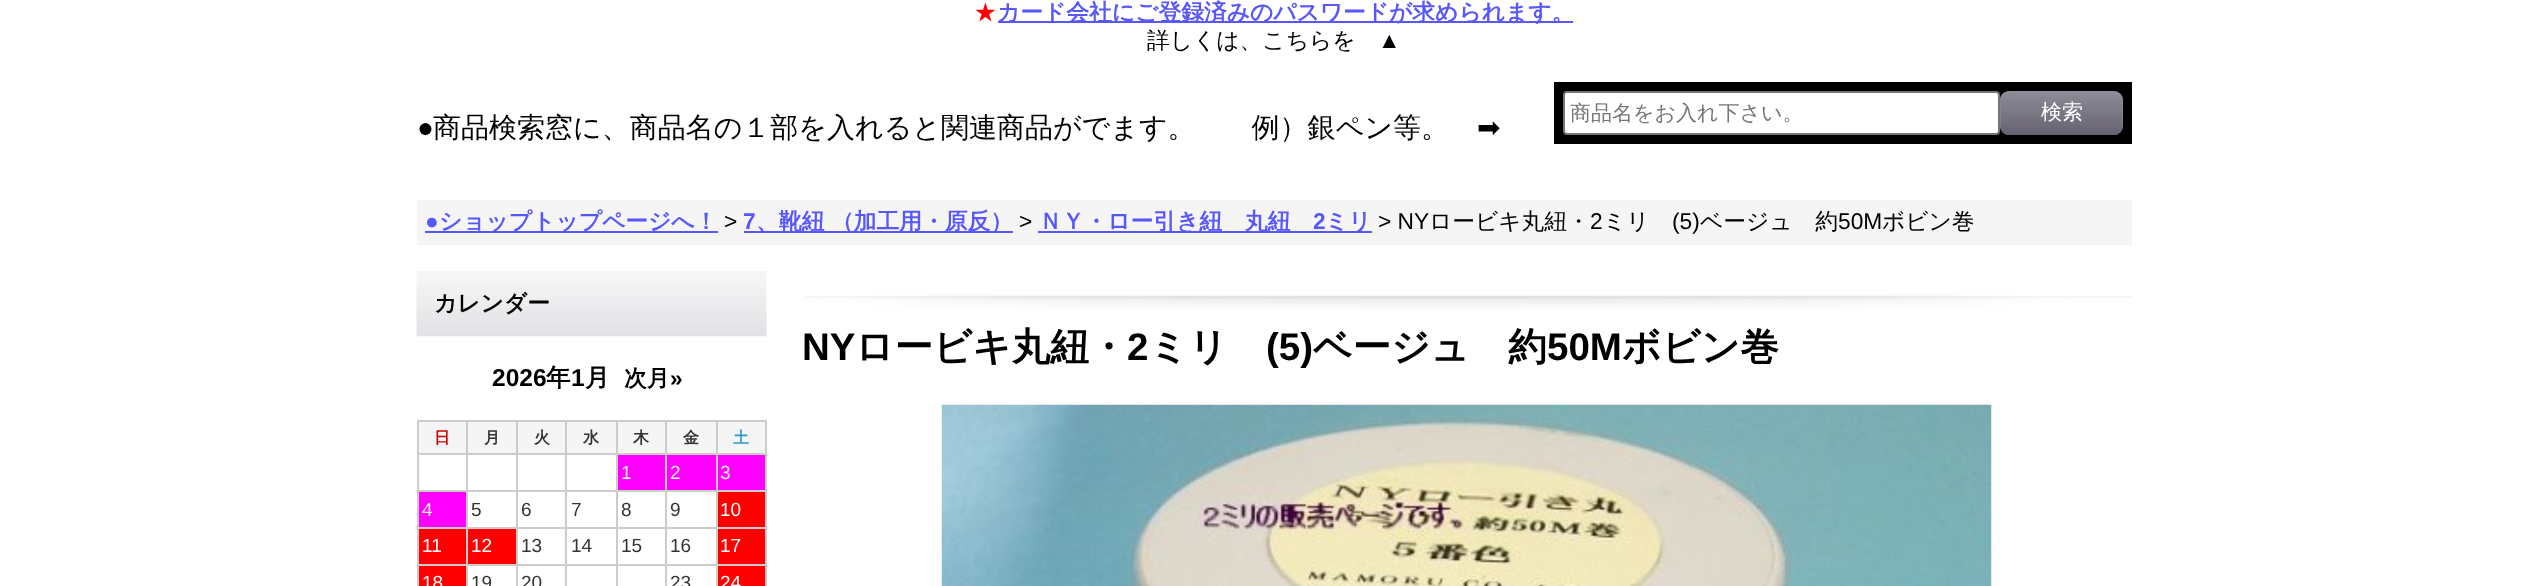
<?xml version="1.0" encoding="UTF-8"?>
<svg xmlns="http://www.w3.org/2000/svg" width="2548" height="586">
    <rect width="100%" height="100%" fill="#FFFFFF"/>
    <text x="974" y="20" font-family="WenQuanYi Zen Hei" font-size="22.75" font-weight="500" fill="#FF0000">★</text>
    <rect x="998" y="21" width="575" height="2" fill="#5858FA"/>
    <text x="997" y="20" font-family="WenQuanYi Zen Hei" font-size="22.75" font-weight="700" fill="#5858FA">カード会社にご登録済みのパスワードが求められます。</text>
    <text x="1147" y="48" font-family="WenQuanYi Zen Hei" font-size="22.75" font-weight="500" fill="#000000">詳しくは、こちらを</text>
    <text x="1378" y="48" font-family="Liberation Sans" font-size="22.75" fill="#000000">▲</text>
    <text x="417" y="137" font-family="Liberation Sans" font-size="28" fill="#000000">●</text>
    <text x="433" y="137" font-family="WenQuanYi Zen Hei" font-size="28" font-weight="500" fill="#000000">商品検索窓に、商品名の１部を入れると関連商品がでます。　　例）銀ペン等。</text>
    <text x="1477" y="137" font-family="DejaVu Sans" font-size="28" fill="#000000">➡</text>
    <rect x="1554" y="82" width="578" height="62" fill="#000000"/>
    <rect x="1564" y="92" width="435" height="42" rx="3" fill="#FFFFFF" stroke="#767676" stroke-width="2"/>
    <text x="1570" y="120" font-family="WenQuanYi Zen Hei" font-size="21" font-weight="500" fill="#757575">商品名をお入れ下さい。</text>
    <rect x="2000" y="91" width="123" height="44" rx="9" fill="#94929D"/>
    <image x="2000" y="91" width="123" height="44" href="img_01.png"/>
    <text x="2041" y="119" font-family="WenQuanYi Zen Hei" font-size="21" font-weight="500" fill="#FFFFFF">検索</text>
    <rect x="417" y="200" width="1715" height="45" fill="#F5F5F5"/>
    <text x="425" y="229" font-family="Liberation Sans" font-size="22.75" font-weight="700" fill="#5858FA">●</text>
    <rect x="425" y="231" width="293" height="2" fill="#5858FA"/>
    <text x="439" y="229" font-family="WenQuanYi Zen Hei" font-size="22.75" font-weight="700" fill="#5858FA">ショップトップページへ！</text>
    <text x="724" y="229" font-family="Liberation Sans" font-size="22.75" fill="#000000">&gt;</text>
    <text x="743" y="229" font-family="Liberation Sans" font-size="22.75" font-weight="700" fill="#5858FA">7</text>
    <rect x="744" y="231" width="269" height="2" fill="#5858FA"/>
    <text x="756" y="229" font-family="WenQuanYi Zen Hei" font-size="22.75" font-weight="700" fill="#5858FA">、靴紐 （加工用・原反）</text>
    <text x="1019" y="229" font-family="Liberation Sans" font-size="22.75" fill="#000000">&gt;</text>
    <rect x="1038" y="231" width="334" height="2" fill="#5858FA"/>
    <text x="1039" y="229" font-family="WenQuanYi Zen Hei" font-size="22.75" font-weight="700" fill="#5858FA">ＮＹ・ロー引き紐　丸紐</text>
    <text x="1313" y="229" font-family="Liberation Sans" font-size="22.75" font-weight="700" fill="#5858FA">2</text>
    <text x="1325" y="229" font-family="WenQuanYi Zen Hei" font-size="22.75" font-weight="700" fill="#5858FA">ミリ</text>
    <text x="1378" y="229" font-family="Liberation Sans" font-size="22.75" fill="#000000">&gt; NY</text>
    <text x="1429" y="229" font-family="WenQuanYi Zen Hei" font-size="22.75" font-weight="500" fill="#000000">ロービキ丸紐・</text>
    <text x="1590" y="229" font-family="Liberation Sans" font-size="22.75" fill="#000000">2</text>
    <text x="1603" y="229" font-family="WenQuanYi Zen Hei" font-size="22.75" font-weight="500" fill="#000000">ミリ</text>
    <text x="1672" y="229" font-family="Liberation Sans" font-size="22.75" fill="#000000">(5)</text>
    <text x="1700" y="229" font-family="WenQuanYi Zen Hei" font-size="22.75" font-weight="500" fill="#000000">ベージュ　約</text>
    <text x="1838" y="229" font-family="Liberation Sans" font-size="22.75" fill="#000000">50M</text>
    <text x="1882" y="229" font-family="WenQuanYi Zen Hei" font-size="22.75" font-weight="500" fill="#000000">ボビン巻</text>
    <image x="416" y="271" width="351" height="66" href="img_02.png"/>
    <rect x="417" y="271" width="350" height="2" fill="#F5F5F5"/>
    <text x="434" y="311" font-family="WenQuanYi Zen Hei" font-size="22.75" font-weight="700" fill="#000000">カレンダー</text>
    <text x="492" y="386" font-family="Liberation Sans" font-size="24.5" font-weight="700" fill="#000000">2026</text>
    <text x="546" y="386" font-family="WenQuanYi Zen Hei" font-size="24.5" font-weight="700" fill="#000000">年</text>
    <text x="571" y="386" font-family="Liberation Sans" font-size="24.5" font-weight="700" fill="#000000">1</text>
    <text x="585" y="386" font-family="WenQuanYi Zen Hei" font-size="24.5" font-weight="700" fill="#000000">月</text>
    <text x="624" y="386" font-family="WenQuanYi Zen Hei" font-size="22.75" font-weight="700" fill="#000000">次月</text>
    <text x="670" y="386" font-family="Liberation Sans" font-size="22.75" font-weight="700" fill="#000000">»</text>
    <rect x="419" y="422" width="47" height="31" fill="#F5F5F5"/>
    <rect x="716" y="420" width="51" height="2" fill="#CCCCCC"/>
    <rect x="716" y="453" width="51" height="2" fill="#CCCCCC"/>
    <rect x="716" y="490" width="51" height="2" fill="#CCCCCC"/>
    <rect x="716" y="527" width="51" height="2" fill="#CCCCCC"/>
    <rect x="716" y="564" width="51" height="2" fill="#CCCCCC"/>
    <rect x="716" y="564" width="2" height="22" fill="#CCCCCC"/>
    <rect x="665" y="564" width="53" height="2" fill="#CCCCCC"/>
    <rect x="716" y="527" width="2" height="38" fill="#CCCCCC"/>
    <rect x="665" y="527" width="53" height="2" fill="#CCCCCC"/>
    <rect x="716" y="490" width="2" height="39" fill="#CCCCCC"/>
    <rect x="665" y="490" width="53" height="2" fill="#CCCCCC"/>
    <rect x="716" y="453" width="2" height="39" fill="#CCCCCC"/>
    <rect x="665" y="453" width="53" height="2" fill="#CCCCCC"/>
    <rect x="716" y="420" width="2" height="35" fill="#CCCCCC"/>
    <rect x="665" y="420" width="53" height="2" fill="#CCCCCC"/>
    <rect x="665" y="564" width="2" height="22" fill="#CCCCCC"/>
    <rect x="616" y="564" width="51" height="2" fill="#CCCCCC"/>
    <rect x="665" y="527" width="2" height="38" fill="#CCCCCC"/>
    <rect x="616" y="527" width="51" height="2" fill="#CCCCCC"/>
    <rect x="665" y="490" width="2" height="39" fill="#CCCCCC"/>
    <rect x="616" y="490" width="51" height="2" fill="#CCCCCC"/>
    <rect x="665" y="453" width="2" height="39" fill="#CCCCCC"/>
    <rect x="616" y="453" width="51" height="2" fill="#CCCCCC"/>
    <rect x="665" y="420" width="2" height="35" fill="#CCCCCC"/>
    <rect x="616" y="420" width="51" height="2" fill="#CCCCCC"/>
    <rect x="616" y="564" width="2" height="22" fill="#CCCCCC"/>
    <rect x="565" y="564" width="53" height="2" fill="#CCCCCC"/>
    <rect x="616" y="527" width="2" height="38" fill="#CCCCCC"/>
    <rect x="565" y="527" width="53" height="2" fill="#CCCCCC"/>
    <rect x="616" y="490" width="2" height="39" fill="#CCCCCC"/>
    <rect x="565" y="490" width="53" height="2" fill="#CCCCCC"/>
    <rect x="616" y="453" width="2" height="39" fill="#CCCCCC"/>
    <rect x="565" y="453" width="53" height="2" fill="#CCCCCC"/>
    <rect x="616" y="420" width="2" height="35" fill="#CCCCCC"/>
    <rect x="565" y="420" width="53" height="2" fill="#CCCCCC"/>
    <rect x="565" y="564" width="2" height="22" fill="#CCCCCC"/>
    <rect x="516" y="564" width="51" height="2" fill="#CCCCCC"/>
    <rect x="565" y="527" width="2" height="38" fill="#CCCCCC"/>
    <rect x="516" y="527" width="51" height="2" fill="#CCCCCC"/>
    <rect x="565" y="490" width="2" height="39" fill="#CCCCCC"/>
    <rect x="516" y="490" width="51" height="2" fill="#CCCCCC"/>
    <rect x="565" y="453" width="2" height="39" fill="#CCCCCC"/>
    <rect x="516" y="453" width="51" height="2" fill="#CCCCCC"/>
    <rect x="565" y="420" width="2" height="35" fill="#CCCCCC"/>
    <rect x="516" y="420" width="51" height="2" fill="#CCCCCC"/>
    <rect x="516" y="564" width="2" height="22" fill="#CCCCCC"/>
    <rect x="466" y="564" width="52" height="2" fill="#CCCCCC"/>
    <rect x="516" y="527" width="2" height="38" fill="#CCCCCC"/>
    <rect x="466" y="527" width="52" height="2" fill="#CCCCCC"/>
    <rect x="516" y="490" width="2" height="39" fill="#CCCCCC"/>
    <rect x="466" y="490" width="52" height="2" fill="#CCCCCC"/>
    <rect x="516" y="453" width="2" height="39" fill="#CCCCCC"/>
    <rect x="466" y="453" width="52" height="2" fill="#CCCCCC"/>
    <rect x="516" y="420" width="2" height="35" fill="#CCCCCC"/>
    <rect x="466" y="420" width="52" height="2" fill="#CCCCCC"/>
    <rect x="466" y="564" width="2" height="22" fill="#CCCCCC"/>
    <rect x="417" y="564" width="50" height="2" fill="#CCCCCC"/>
    <rect x="466" y="527" width="2" height="38" fill="#CCCCCC"/>
    <rect x="417" y="527" width="50" height="2" fill="#CCCCCC"/>
    <rect x="466" y="490" width="2" height="39" fill="#CCCCCC"/>
    <rect x="417" y="490" width="50" height="2" fill="#CCCCCC"/>
    <rect x="466" y="453" width="2" height="39" fill="#CCCCCC"/>
    <rect x="417" y="453" width="50" height="2" fill="#CCCCCC"/>
    <rect x="466" y="420" width="2" height="35" fill="#CCCCCC"/>
    <rect x="417" y="420" width="50" height="2" fill="#CCCCCC"/>
    <rect x="417" y="564" width="2" height="22" fill="#CCCCCC"/>
    <rect x="417" y="527" width="2" height="38" fill="#CCCCCC"/>
    <rect x="417" y="490" width="2" height="39" fill="#CCCCCC"/>
    <rect x="417" y="453" width="2" height="39" fill="#CCCCCC"/>
    <rect x="417" y="420" width="2" height="35" fill="#CCCCCC"/>
    <text x="434" y="443" font-family="WenQuanYi Zen Hei" font-size="16" font-weight="700" fill="#CC0000">日</text>
    <rect x="468" y="422" width="48" height="31" fill="#F5F5F5"/>
    <text x="484" y="443" font-family="WenQuanYi Zen Hei" font-size="16" font-weight="700" fill="#333333">月</text>
    <rect x="518" y="422" width="47" height="31" fill="#F5F5F5"/>
    <text x="534" y="443" font-family="WenQuanYi Zen Hei" font-size="16" font-weight="700" fill="#333333">火</text>
    <rect x="567" y="422" width="49" height="31" fill="#F5F5F5"/>
    <text x="583" y="443" font-family="WenQuanYi Zen Hei" font-size="16" font-weight="700" fill="#333333">水</text>
    <rect x="618" y="422" width="47" height="31" fill="#F5F5F5"/>
    <text x="633" y="443" font-family="WenQuanYi Zen Hei" font-size="16" font-weight="700" fill="#333333">木</text>
    <rect x="667" y="422" width="49" height="31" fill="#F5F5F5"/>
    <text x="683" y="443" font-family="WenQuanYi Zen Hei" font-size="16" font-weight="700" fill="#333333">金</text>
    <rect x="718" y="422" width="47" height="31" fill="#F5F5F5"/>
    <rect x="765" y="564" width="2" height="22" fill="#CCCCCC"/>
    <rect x="765" y="527" width="2" height="38" fill="#CCCCCC"/>
    <rect x="765" y="490" width="2" height="39" fill="#CCCCCC"/>
    <rect x="765" y="453" width="2" height="39" fill="#CCCCCC"/>
    <rect x="765" y="420" width="2" height="35" fill="#CCCCCC"/>
    <text x="733" y="443" font-family="WenQuanYi Zen Hei" font-size="16" font-weight="700" fill="#3399CC">土</text>
    <rect x="618" y="455" width="47" height="35" fill="#FF00FF"/>
    <text x="621" y="479" font-family="Liberation Sans" font-size="19" fill="#EFEFEF">1</text>
    <rect x="667" y="455" width="49" height="35" fill="#FF00FF"/>
    <text x="670" y="479" font-family="Liberation Sans" font-size="19" fill="#EFEFEF">2</text>
    <rect x="718" y="455" width="47" height="35" fill="#FF00FF"/>
    <text x="720" y="479" font-family="Liberation Sans" font-size="19" fill="#EFEFEF">3</text>
    <rect x="419" y="492" width="47" height="35" fill="#FF00FF"/>
    <text x="422" y="516" font-family="Liberation Sans" font-size="19" fill="#EFEFEF">4</text>
    <text x="471" y="516" font-family="Liberation Sans" font-size="19" fill="#333333">5</text>
    <text x="521" y="516" font-family="Liberation Sans" font-size="19" fill="#333333">6</text>
    <text x="571" y="516" font-family="Liberation Sans" font-size="19" fill="#333333">7</text>
    <text x="621" y="516" font-family="Liberation Sans" font-size="19" fill="#333333">8</text>
    <text x="670" y="516" font-family="Liberation Sans" font-size="19" fill="#333333">9</text>
    <rect x="718" y="492" width="47" height="35" fill="#FF0000"/>
    <text x="720" y="516" font-family="Liberation Sans" font-size="19" fill="#FFFFFF">10</text>
    <rect x="419" y="529" width="47" height="35" fill="#FF0000"/>
    <text x="422" y="552" font-family="Liberation Sans" font-size="19" fill="#FFFFFF">11</text>
    <rect x="468" y="529" width="48" height="35" fill="#FF0000"/>
    <text x="471" y="552" font-family="Liberation Sans" font-size="19" fill="#FFFFFF">12</text>
    <text x="521" y="552" font-family="Liberation Sans" font-size="19" fill="#333333">13</text>
    <text x="571" y="552" font-family="Liberation Sans" font-size="19" fill="#333333">14</text>
    <text x="621" y="552" font-family="Liberation Sans" font-size="19" fill="#333333">15</text>
    <text x="670" y="552" font-family="Liberation Sans" font-size="19" fill="#333333">16</text>
    <rect x="718" y="529" width="47" height="35" fill="#FF0000"/>
    <text x="720" y="552" font-family="Liberation Sans" font-size="19" fill="#FFFFFF">17</text>
    <rect x="419" y="566" width="47" height="20" fill="#FF0000"/>
    <text x="422" y="589" font-family="Liberation Sans" font-size="19" fill="#FFFFFF">18</text>
    <text x="471" y="589" font-family="Liberation Sans" font-size="19" fill="#333333">19</text>
    <text x="521" y="589" font-family="Liberation Sans" font-size="19" fill="#333333">20</text>
    <text x="670" y="589" font-family="Liberation Sans" font-size="19" fill="#333333">23</text>
    <rect x="718" y="566" width="47" height="20" fill="#FF0000"/>
    <text x="720" y="589" font-family="Liberation Sans" font-size="19" fill="#FFFFFF">24</text>
    <image x="805" y="295" width="1327" height="14" href="img_03.png"/>
    <text x="802" y="360" font-family="Liberation Sans" font-size="38.5" font-weight="700" fill="#000000">NY</text>
    <text x="855" y="360" font-family="WenQuanYi Zen Hei" font-size="38.5" font-weight="700" fill="#000000">ロービキ丸紐・</text>
    <text x="1127" y="360" font-family="Liberation Sans" font-size="38.5" font-weight="700" fill="#000000">2</text>
    <text x="1149" y="360" font-family="WenQuanYi Zen Hei" font-size="38.5" font-weight="700" fill="#000000">ミリ</text>
    <text x="1266" y="360" font-family="Liberation Sans" font-size="38.5" font-weight="700" fill="#000000">(5)</text>
    <text x="1313" y="360" font-family="WenQuanYi Zen Hei" font-size="38.5" font-weight="700" fill="#000000">ベージュ　約</text>
    <text x="1547" y="360" font-family="Liberation Sans" font-size="38.5" font-weight="700" fill="#000000">50M</text>
    <text x="1622" y="360" font-family="WenQuanYi Zen Hei" font-size="38.5" font-weight="700" fill="#000000">ボビン巻</text>
    <image x="941" y="404" width="1051" height="182" href="img_04.png"/>
</svg>
